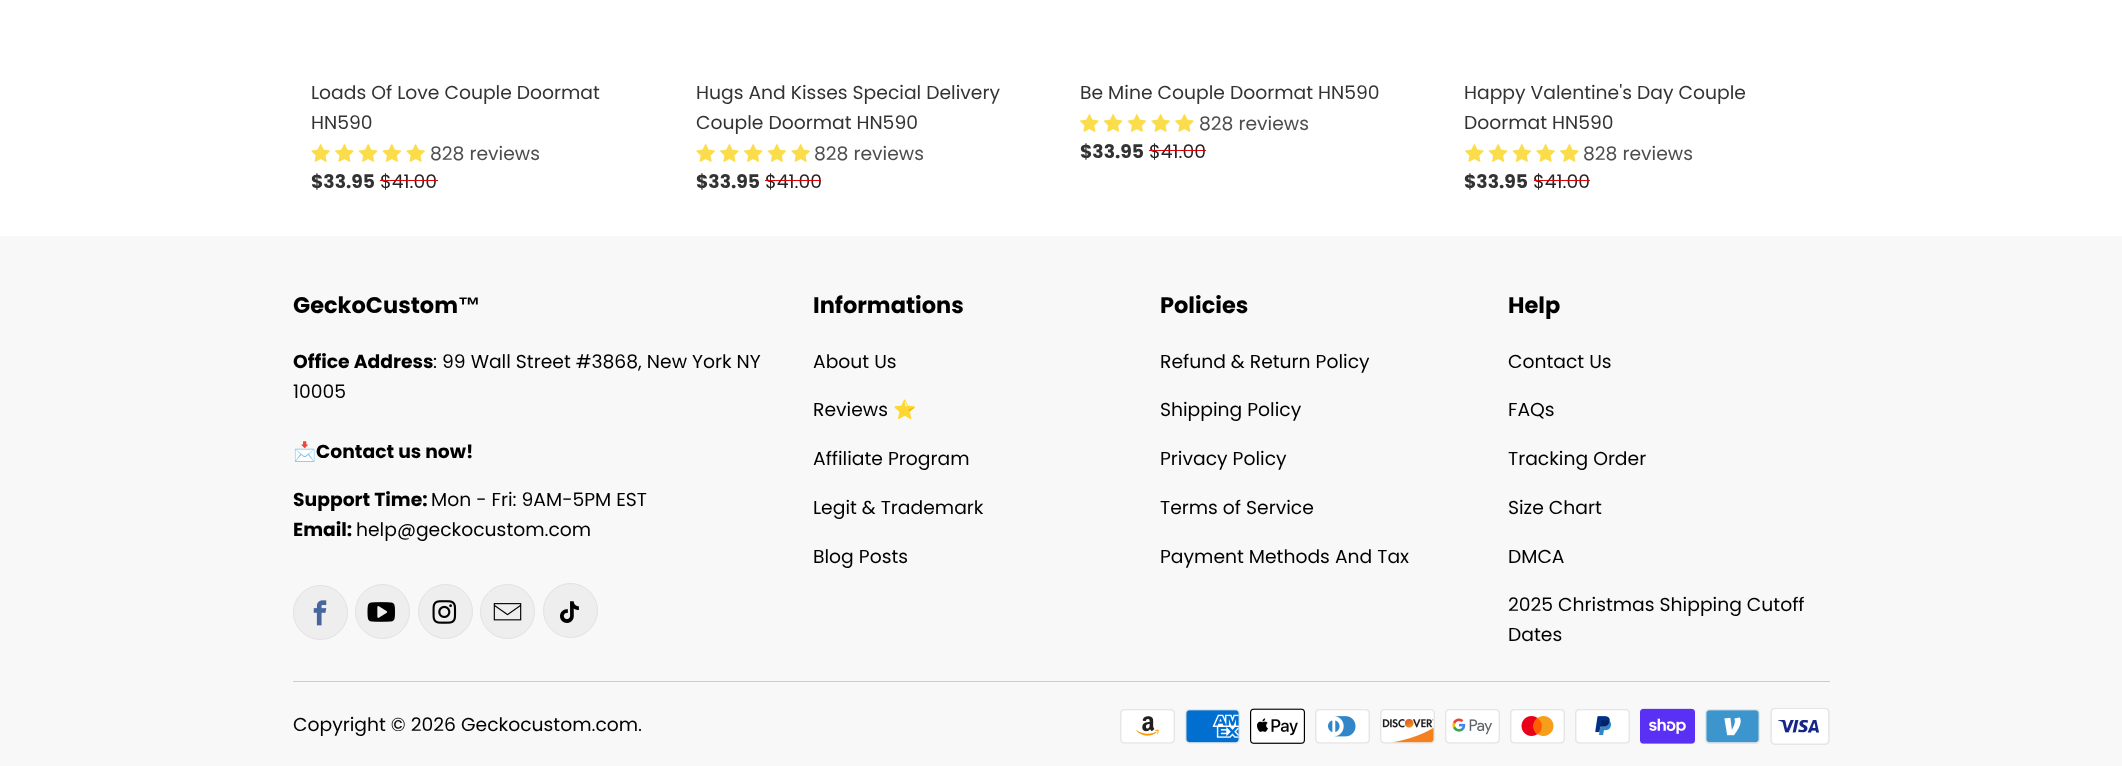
<?xml version="1.0" encoding="UTF-8"?>
<svg xmlns="http://www.w3.org/2000/svg" width="2122" height="766">
    <rect width="100%" height="100%" fill="#FFFFFF"/>
    <text font-family="Poppins" font-size="18.75" fill="#333333">
        <tspan x="311" y="99">Loads Of Love Couple Doormat</tspan>
        <tspan x="311" y="129">HN590</tspan>
    </text>
    <image x="311" y="144" width="19" height="18" href="img_01.png"/>
    <image x="335" y="144" width="19" height="18" href="img_02.png"/>
    <image x="358" y="144" width="20" height="18" href="img_03.png"/>
    <image x="382" y="144" width="20" height="18" href="img_04.png"/>
    <image x="406" y="144" width="19" height="18" href="img_01.png"/>
    <text x="430" y="160" font-family="Poppins" font-size="18.75" fill="#4D4D4D">828 reviews</text>
    <text x="311" y="188" font-family="Poppins" font-size="18.75" font-weight="700" fill="#333333">$33.95</text>
    <text x="380" y="188" font-family="Poppins" font-size="18.75" fill="#272626">$41.00</text>
    <rect x="380" y="180" width="58" height="1" fill="#DE0101"/>
    <text font-family="Poppins" font-size="18.75" fill="#333333">
        <tspan x="696" y="99">Hugs And Kisses Special Delivery</tspan>
        <tspan x="696" y="129">Couple Doormat HN590</tspan>
    </text>
    <image x="696" y="144" width="19" height="18" href="img_01.png"/>
    <image x="720" y="144" width="19" height="18" href="img_02.png"/>
    <image x="743" y="144" width="20" height="18" href="img_03.png"/>
    <image x="767" y="144" width="20" height="18" href="img_04.png"/>
    <image x="791" y="144" width="19" height="18" href="img_01.png"/>
    <text x="814" y="160" font-family="Poppins" font-size="18.75" fill="#4D4D4D">828 reviews</text>
    <text x="696" y="188" font-family="Poppins" font-size="18.75" font-weight="700" fill="#333333">$33.95</text>
    <text x="765" y="188" font-family="Poppins" font-size="18.75" fill="#272626">$41.00</text>
    <rect x="765" y="180" width="56" height="1" fill="#DE0101"/>
    <text x="1080" y="99" font-family="Poppins" font-size="18.75" fill="#333333">Be Mine Couple Doormat HN590</text>
    <image x="1080" y="114" width="19" height="18" href="img_02.png"/>
    <image x="1103" y="114" width="20" height="18" href="img_03.png"/>
    <image x="1127" y="114" width="20" height="18" href="img_04.png"/>
    <image x="1151" y="114" width="19" height="18" href="img_01.png"/>
    <image x="1175" y="114" width="19" height="18" href="img_02.png"/>
    <text x="1199" y="130" font-family="Poppins" font-size="18.75" fill="#4D4D4D">828 reviews</text>
    <text x="1080" y="158" font-family="Poppins" font-size="18.75" font-weight="700" fill="#333333">$33.95</text>
    <text x="1149" y="158" font-family="Poppins" font-size="18.75" fill="#272626">$41.00</text>
    <rect x="1149" y="150" width="57" height="1" fill="#DE0101"/>
    <text font-family="Poppins" font-size="18.75" fill="#333333">
        <tspan x="1464" y="99">Happy Valentine's Day Couple</tspan>
        <tspan x="1464" y="129">Doormat HN590</tspan>
    </text>
    <image x="1465" y="144" width="19" height="18" href="img_02.png"/>
    <image x="1488" y="144" width="20" height="18" href="img_03.png"/>
    <image x="1512" y="144" width="20" height="18" href="img_04.png"/>
    <image x="1536" y="144" width="19" height="18" href="img_01.png"/>
    <image x="1560" y="144" width="19" height="18" href="img_02.png"/>
    <text x="1583" y="160" font-family="Poppins" font-size="18.75" fill="#4D4D4D">828 reviews</text>
    <text x="1464" y="188" font-family="Poppins" font-size="18.75" font-weight="700" fill="#333333">$33.95</text>
    <text x="1533" y="188" font-family="Poppins" font-size="18.75" fill="#272626">$41.00</text>
    <rect x="1534" y="180" width="56" height="1" fill="#DE0101"/>
    <rect x="0" y="236" width="2122" height="530" fill="#F8F8F8"/>
    <text x="293" y="313" font-family="Poppins" font-size="22.5" font-weight="700" fill="#000000">GeckoCustom</text>
    <text x="458" y="313" font-family="Liberation Sans" font-size="22.5" font-weight="700" fill="#000000">™</text>
    <text x="293" y="368" font-family="Poppins" font-size="18.75" font-weight="700" fill="#000000">Office Address</text>
    <text x="433" y="368" font-family="Poppins" font-size="18.75" fill="#000000">: 99 Wall Street #3868, New York NY</text>
    <text x="293" y="398" font-family="Poppins" font-size="18.75" fill="#000000">10005</text>
    <text x="293" y="458" font-family="Noto Color Emoji" font-size="18.75" font-weight="700" fill="#000000">📩</text>
    <text x="316" y="458" font-family="Poppins" font-size="18.75" font-weight="700" fill="#000000">Contact us now!</text>
    <text x="293" y="506" font-family="Poppins" font-size="18.75" font-weight="700" fill="#000000">Support Time:</text>
    <text x="431" y="506" font-family="Poppins" font-size="18.75" fill="#000000">Mon - Fri: 9AM-5PM EST</text>
    <text x="293" y="536" font-family="Poppins" font-size="18.75" font-weight="700" fill="#000000">Email:</text>
    <text x="356" y="536" font-family="Poppins" font-size="18.75" fill="#000000">help@geckocustom.com</text>
    <circle cx="320.5" cy="612.5" r="27" fill="#EEEEEE" stroke="#E2E2E2"/>
    <image x="313" y="600" width="14" height="26" href="img_05.png"/>
    <circle cx="382.5" cy="611.5" r="27" fill="#EEEEEE" stroke="#E2E2E2"/>
    <image x="367" y="602" width="28" height="20" href="img_06.png"/>
    <circle cx="445.5" cy="611.5" r="27" fill="#EEEEEE" stroke="#E2E2E2"/>
    <image x="432" y="600" width="25" height="24" href="img_07.png"/>
    <circle cx="507.5" cy="611.5" r="27" fill="#EEEEEE" stroke="#E2E2E2"/>
    <image x="493" y="603" width="29" height="18" href="img_08.png"/>
    <circle cx="570.5" cy="610.5" r="27" fill="#EEEEEE" stroke="#E2E2E2"/>
    <image x="560" y="601" width="19" height="22" href="img_09.png"/>
    <text x="813" y="313" font-family="Poppins" font-size="22.5" font-weight="700" fill="#000000">Informations</text>
    <text x="813" y="368" font-family="Poppins" font-size="18.75" fill="#000000">About Us</text>
    <text x="813" y="416" font-family="Poppins" font-size="18.75" fill="#000000">Reviews</text>
    <text x="893" y="416" font-family="Noto Color Emoji" font-size="18.75" fill="#000000">⭐</text>
    <text x="813" y="465" font-family="Poppins" font-size="18.75" fill="#000000">Affiliate Program</text>
    <text x="813" y="514" font-family="Poppins" font-size="18.75" fill="#000000">Legit &amp; Trademark</text>
    <text x="813" y="563" font-family="Poppins" font-size="18.75" fill="#000000">Blog Posts</text>
    <text x="1160" y="313" font-family="Poppins" font-size="22.5" font-weight="700" fill="#000000">Policies</text>
    <text x="1160" y="368" font-family="Poppins" font-size="18.75" fill="#000000">Refund &amp; Return Policy</text>
    <text x="1160" y="416" font-family="Poppins" font-size="18.75" fill="#000000">Shipping Policy</text>
    <text x="1160" y="465" font-family="Poppins" font-size="18.75" fill="#000000">Privacy Policy</text>
    <text x="1160" y="514" font-family="Poppins" font-size="18.75" fill="#000000">Terms of Service</text>
    <text x="1160" y="563" font-family="Poppins" font-size="18.75" fill="#000000">Payment Methods And Tax</text>
    <text x="1508" y="313" font-family="Poppins" font-size="22.5" font-weight="700" fill="#000000">Help</text>
    <text x="1508" y="368" font-family="Poppins" font-size="18.75" fill="#000000">Contact Us</text>
    <text x="1508" y="416" font-family="Poppins" font-size="18.75" fill="#000000">FAQs</text>
    <text x="1508" y="465" font-family="Poppins" font-size="18.75" fill="#000000">Tracking Order</text>
    <text x="1508" y="514" font-family="Poppins" font-size="18.75" fill="#000000">Size Chart</text>
    <text x="1508" y="563" font-family="Poppins" font-size="18.75" fill="#000000">DMCA</text>
    <text font-family="Poppins" font-size="18.75" fill="#000000">
        <tspan x="1508" y="611">2025 Christmas Shipping Cutoff</tspan>
        <tspan x="1508" y="641">Dates</tspan>
    </text>
    <rect x="293" y="681" width="1537" height="1" fill="#CCCCCC"/>
    <text x="293" y="731" font-family="Poppins" font-size="18.75" fill="#000000">Copyright © 2026 Geckocustom.com</text>
    <text x="638" y="731" font-family="Poppins" font-size="18.75" fill="#000000">.</text>
    <image x="1120" y="709" width="55" height="35" href="img_10.png"/>
    <image x="1185" y="709" width="55" height="35" href="img_11.png"/>
    <image x="1250" y="708" width="55" height="36" href="img_12.png"/>
    <image x="1315" y="709" width="55" height="35" href="img_13.png"/>
    <image x="1380" y="709" width="55" height="35" href="img_14.png"/>
    <image x="1445" y="709" width="55" height="35" href="img_15.png"/>
    <image x="1510" y="709" width="55" height="35" href="img_16.png"/>
    <image x="1575" y="709" width="55" height="35" href="img_17.png"/>
    <image x="1640" y="708" width="55" height="36" href="img_18.png"/>
    <image x="1705" y="709" width="55" height="35" href="img_19.png"/>
    <image x="1770" y="708" width="60" height="37" href="img_20.png"/>
</svg>
